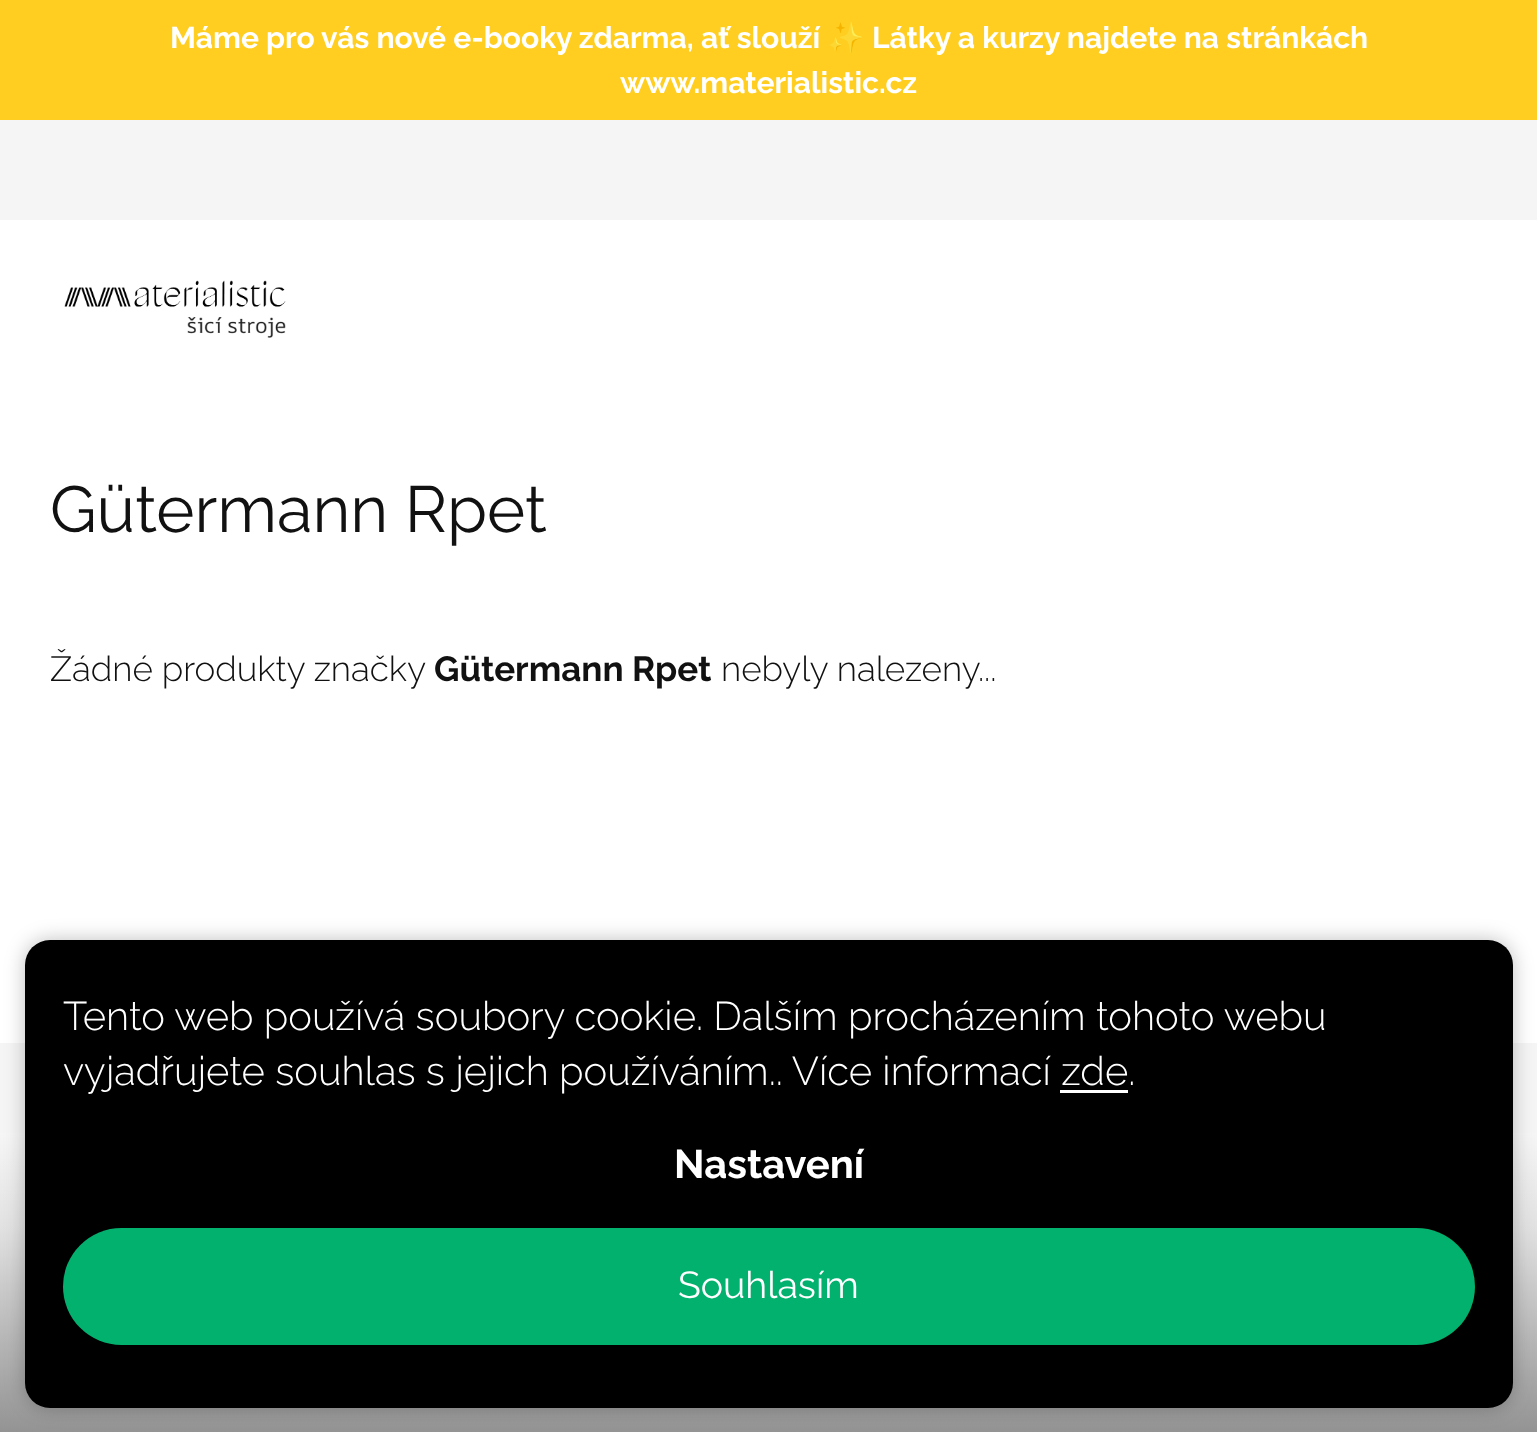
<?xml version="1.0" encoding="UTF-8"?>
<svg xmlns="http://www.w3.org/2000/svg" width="1537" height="1432">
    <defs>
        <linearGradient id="g1" gradientUnits="userSpaceOnUse" x1="769" y1="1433" x2="769" y2="1133"><stop offset="0" stop-color="#939393"/><stop offset="0.69" stop-color="#E2E2E2"/><stop offset="1" stop-color="#F6F6F6"/></linearGradient>
        <filter id="blur1" x="-50%" y="-200%" width="200%" height="500%"><feGaussianBlur stdDeviation="10"/></filter>
    </defs>
    <rect width="100%" height="100%" fill="#FFFFFF"/>
    <rect x="0" y="0" width="1537" height="120" fill="#FFCE20"/>
    <text x="170" y="48" font-family="Raleway" font-size="30" font-weight="700" fill="#FFFFFF">Máme pro vás nové e-booky zdarma, ať slouží</text>
    <text x="827" y="48" font-family="Noto Color Emoji" font-size="30" font-weight="700" fill="#FFFFFF">✨</text>
    <text x="872" y="48" font-family="Raleway" font-size="30" font-weight="700" fill="#FFFFFF">Látky a kurzy najdete na stránkách</text>
    <text x="620" y="93" font-family="Raleway" font-size="30" font-weight="700" fill="#FFFFFF">www.materialistic.cz</text>
    <rect x="0" y="120" width="1537" height="100" fill="#F5F5F5"/>
    <image x="64" y="280" width="222" height="58" href="img_01.png"/>
    <text x="50" y="532" font-family="Raleway" font-size="65" font-weight="100" fill="#111111">Gütermann Rpet</text>
    <text x="50" y="681" font-family="Raleway" font-size="35" font-weight="300" fill="#111111">Žádné produkty značky</text>
    <text x="434" y="681" font-family="Raleway" font-size="35" font-weight="700" fill="#111111">Gütermann Rpet</text>
    <text x="721" y="681" font-family="Raleway" font-size="35" font-weight="300" fill="#111111">nebyly nalezeny...</text>
    <rect x="0" y="1133" width="1537" height="299" fill="url(#g1)"/>
    <rect x="0" y="1043" width="1537" height="90" fill="#F5F5F5"/>
    <rect x="25" y="940" width="1488" height="468" rx="25" fill="#000000" fill-opacity="0.25" filter="url(#blur1)"/>
    <rect x="25" y="940" width="1488" height="468" rx="25" fill="#000000"/>
    <text font-family="Raleway" font-size="40" font-weight="300" fill="#FFFFFF">
        <tspan x="63" y="1030">Tento web používá soubory cookie. Dalším procházením tohoto webu</tspan>
        <tspan x="63" y="1085">vyjadřujete souhlas s jejich používáním.. Více informací zde.</tspan>
    </text>
    <rect x="1060" y="1090" width="68" height="3" fill="#FFFFFF"/>
    <text x="674" y="1178" font-family="Raleway" font-size="40" font-weight="700" fill="#FFFFFF">Nastavení</text>
    <rect x="63" y="1228" width="1412" height="117" rx="58.5" fill="#02B16E"/>
    <text x="678" y="1298" font-family="Raleway" font-size="37.5" font-weight="100" fill="#FFFFFF">Souhlasím</text>
</svg>
